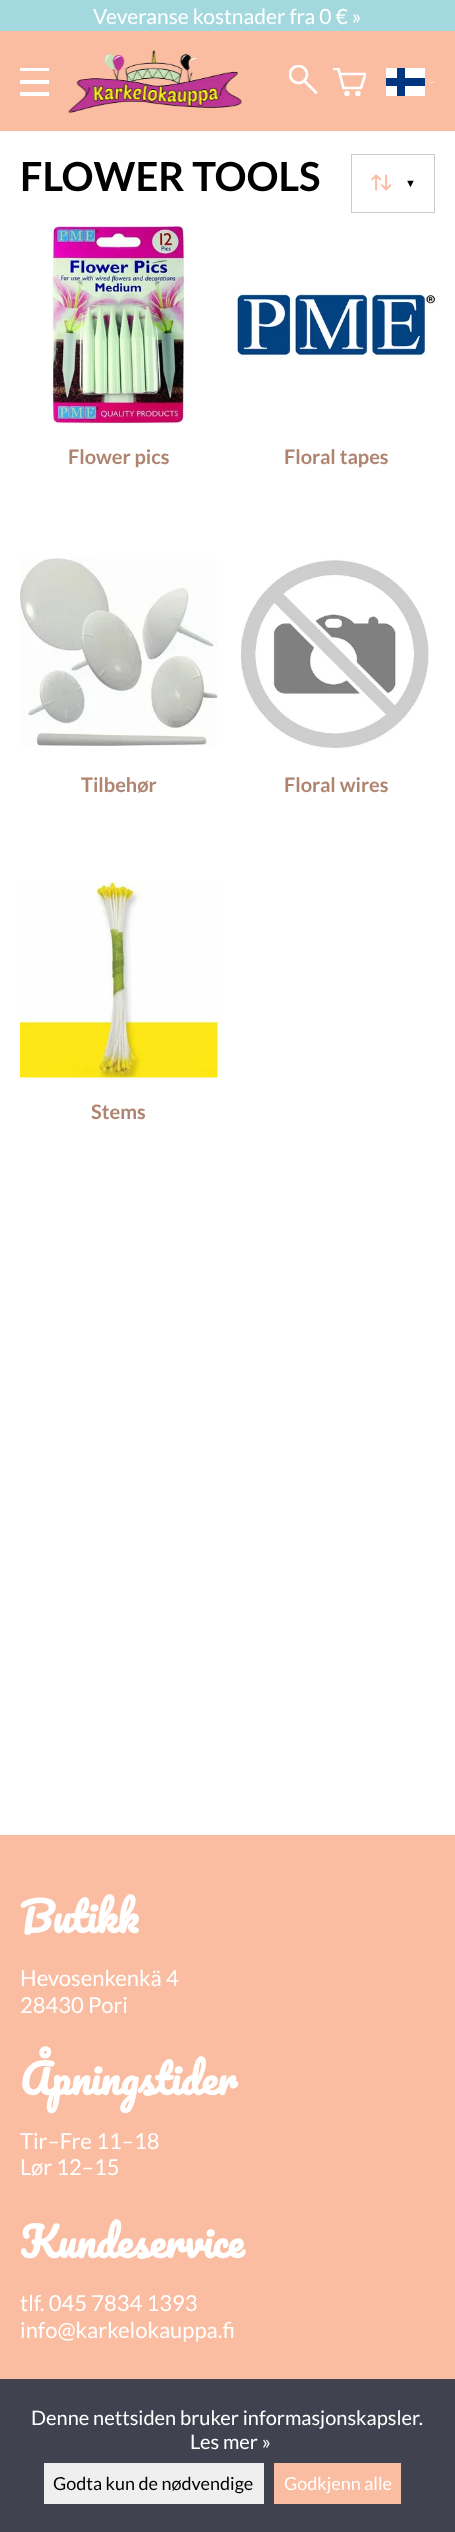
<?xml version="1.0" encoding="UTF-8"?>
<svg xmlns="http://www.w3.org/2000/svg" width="455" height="2532">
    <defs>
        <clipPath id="clip1"><rect x="289" y="65" width="29" height="29"/></clipPath>
        <clipPath id="clip2"><rect x="333" y="68" width="33" height="28"/></clipPath>
    </defs>
    <rect width="100%" height="100%" fill="#FFFFFF"/>
    <rect x="0" y="0" width="455" height="31" fill="#A3D9DE"/>
    <text x="93" y="24" font-family="Lato" font-size="21" fill="#FFFFFF">Veveranse kostnader fra 0 € »</text>
    <rect x="0" y="31" width="455" height="100" fill="#FBBDA1"/>
    <rect x="20" y="68" width="29" height="3" fill="#FFFFFF"/>
    <rect x="20" y="92" width="29" height="4" fill="#FFFFFF"/>
    <rect x="20" y="80" width="29" height="4" fill="#FFFFFF"/>
    <image x="68" y="50" width="174" height="63" href="img_01.png"/>
    <path d="M 316 92.5 L 304.5 81" fill="none" stroke="#FFFFFF" stroke-width="2.7" stroke-linecap="round"/>
    <g clip-path="url(#clip1)">
        <circle cx="298.5" cy="74.5" r="8.5" fill="none" stroke="#FFFFFF" stroke-width="2.7"/>
    </g>
    <g clip-path="url(#clip2)">
        <path d="M 340 74 H 365.5 L 361 88 H 343.5 L 338.5 69 H 334" fill="none" stroke="#FFFFFF" stroke-width="2.7" stroke-linecap="round"/>
    </g>
    <circle cx="347" cy="93.5" r="1.4" fill="none" stroke="#FFFFFF" stroke-width="2.7"/>
    <circle cx="357.9" cy="93.5" r="1.4" fill="none" stroke="#FFFFFF" stroke-width="2.7"/>
    <rect x="386" y="68" width="39" height="28" fill="#FFFFFF"/>
    <rect x="386" y="78" width="39" height="8" fill="#003580"/>
    <rect x="397" y="68" width="8" height="28" fill="#003580"/>
    <path d="M 429 81.5 L 431.5 83 L 434.5 81.5" fill="none" stroke="#FFFFFF" stroke-width="0.5" stroke-linecap="round"/>
    <text x="20" y="191" font-family="Lato" font-size="40" font-weight="700" fill="#000000">FLOWER TOOLS</text>
    <rect x="351.5" y="154.5" width="83" height="58" fill="none" stroke="#CCCCCC"/>
    <image x="371" y="174" width="20" height="17" href="img_02.png"/>
    <text x="405" y="187" font-family="Liberation Sans" font-size="11" fill="#000000">▼</text>
    <image x="51" y="226" width="135" height="198" href="img_03.png"/>
    <text x="68" y="464" font-family="Lato" font-size="20" font-weight="700" fill="#AF8470">Flower pics</text>
    <image x="237" y="294" width="198" height="64" href="img_04.png"/>
    <text x="284" y="464" font-family="Lato" font-size="20" font-weight="700" fill="#AF8470">Floral tapes</text>
    <image x="20" y="558" width="198" height="188" href="img_05.png"/>
    <text x="81" y="792" font-family="Lato" font-size="20" font-weight="700" fill="#AF8470">Tilbehør</text>
    <image x="240" y="559" width="190" height="190" href="img_06.png"/>
    <text x="284" y="792" font-family="Lato" font-size="20" font-weight="700" fill="#AF8470">Floral wires</text>
    <image x="20" y="881" width="198" height="198" href="img_07.png"/>
    <text x="91" y="1119" font-family="Lato" font-size="20" font-weight="700" fill="#AF8470">Stems</text>
    <rect x="0" y="1835" width="455" height="544" fill="#FBBDA1"/>
    <text x="20" y="1933" font-family="Pacifico" font-size="40" font-weight="700" fill="#FFFFFF">Butikk</text>
    <text font-family="Lato" font-size="22" fill="#FFFFFF">
        <tspan x="20" y="1986">Hevosenkenkä 4</tspan>
        <tspan x="20" y="2013">28430 Pori</tspan>
    </text>
    <text x="20" y="2095" font-family="Pacifico" font-size="40" font-weight="700" fill="#FFFFFF">Åpningstider</text>
    <text font-family="Lato" font-size="22" fill="#FFFFFF">
        <tspan x="20" y="2149">Tir–Fre 11–18</tspan>
        <tspan x="20" y="2175">Lør 12–15</tspan>
    </text>
    <text x="20" y="2258" font-family="Pacifico" font-size="40" font-weight="700" fill="#FFFFFF">Kundeservice</text>
    <text font-family="Lato" font-size="22" fill="#FFFFFF">
        <tspan x="20" y="2311">tlf. 045 7834 1393</tspan>
        <tspan x="20" y="2338">info@karkelokauppa.fi</tspan>
    </text>
    <rect x="0" y="2379" width="455" height="153" fill="#41424F"/>
    <text x="31" y="2425" font-family="Lato" font-size="20" fill="#FFFFFF">Denne nettsiden bruker informasjonskapsler.</text>
    <text x="190" y="2449" font-family="Lato" font-size="20" fill="#FFFFFF">Les mer »</text>
    <rect x="44" y="2463" width="220" height="41" fill="#EFEFEF"/>
    <text x="53" y="2490" font-family="Lato" font-size="18" fill="#000000">Godta kun de nødvendige</text>
    <rect x="274" y="2463" width="127" height="41" fill="#FBBDA1"/>
    <text x="284" y="2490" font-family="Lato" font-size="18" fill="#FFFFFF">Godkjenn alle</text>
</svg>
